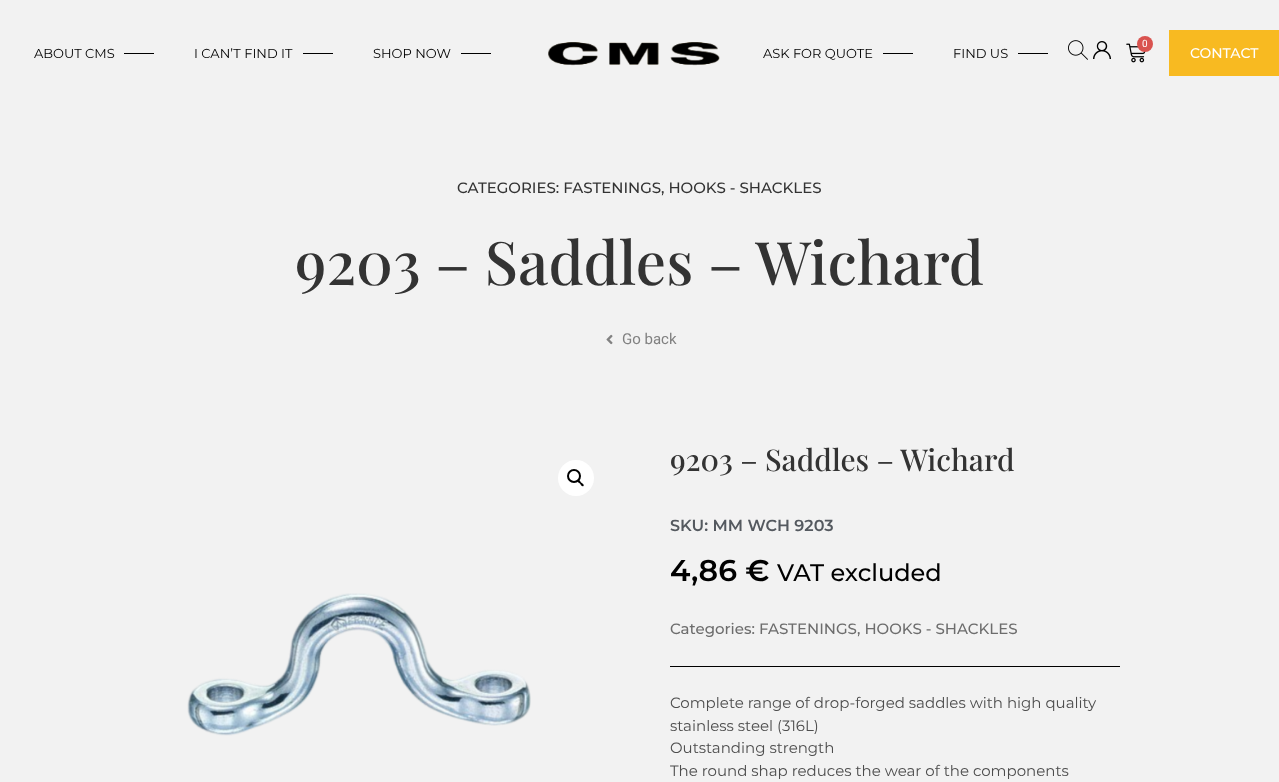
<?xml version="1.0" encoding="UTF-8"?>
<svg xmlns="http://www.w3.org/2000/svg" width="1279" height="782">
    <rect width="100%" height="100%" fill="#F2F2F2"/>
    <text x="34" y="58" font-family="Montserrat" font-size="13" fill="#000000">ABOUT CMS</text>
    <rect x="124" y="53" width="30" height="1" fill="#000000"/>
    <text x="194" y="58" font-family="Montserrat" font-size="13" fill="#000000">I CAN’T FIND IT</text>
    <rect x="303" y="53" width="30" height="1" fill="#000000"/>
    <text x="373" y="58" font-family="Montserrat" font-size="13" fill="#000000">SHOP NOW</text>
    <rect x="461" y="53" width="30" height="1" fill="#000000"/>
    <image x="548" y="42" width="172" height="24" href="img_01.png"/>
    <text x="763" y="58" font-family="Montserrat" font-size="13" fill="#000000">ASK FOR QUOTE</text>
    <rect x="883" y="53" width="30" height="1" fill="#000000"/>
    <text x="953" y="58" font-family="Montserrat" font-size="13" fill="#000000">FIND US</text>
    <rect x="1018" y="53" width="30" height="1" fill="#000000"/>
    <image x="1068" y="40" width="20" height="20" href="img_02.png"/>
    <image x="1093" y="41" width="18" height="18" href="img_03.png"/>
    <image x="1126" y="43" width="20" height="20" href="img_04.png"/>
    <circle cx="1145" cy="44" r="8" fill="#D9534F"/>
    <text x="1142" y="47" font-family="Roboto" font-size="10" fill="#FFFFFF">0</text>
    <rect x="1169" y="30" width="110" height="46" fill="#F8BA21"/>
    <text x="1190" y="58" font-family="Montserrat" font-size="14" font-weight="500" fill="#FFFFFF">CONTACT</text>
    <text x="457" y="193" font-family="Montserrat" font-size="15" font-weight="500" fill="#333333">CATEGORIES: FASTENINGS</text>
    <text x="661" y="193" font-family="Montserrat" font-size="15" font-weight="500" fill="#333333">, HOOKS - SHACKLES</text>
    <text x="295" y="285" font-family="Playfair Display" font-size="60" font-weight="500" fill="#333333">9203 – Saddles – Wichard</text>
    <image x="606" y="334" width="7" height="11" href="img_05.png"/>
    <text x="622" y="344" font-family="Roboto" font-size="15" fill="#818181">Go back</text>
    <circle cx="576" cy="478" r="18" fill="#FFFFFF"/>
    <circle cx="574" cy="476" r="6" fill="none" stroke="#000000" stroke-width="2"/>
    <path d="M 577.5 480 C 579 479 580.5 481.5 581 482.5 C 582 483 584.5 484.5 583.5 486 C 582 487 580.5 484.5 580 483.5 C 579 483 576.5 481.5 577.5 480 Z" fill="#000000"/>
    <image x="187" y="593" width="344" height="143" href="img_06.png"/>
    <text x="670" y="471" font-family="Playfair Display" font-size="30" font-weight="500" fill="#333333">9203 – Saddles – Wichard</text>
    <text x="670" y="531" font-family="Montserrat" font-size="16" font-weight="600" fill="#54595F">SKU: MM WCH 9203</text>
    <text x="670" y="581" font-family="Montserrat" font-size="30" font-weight="600" fill="#000000">4,86 €</text>
    <text x="777" y="581" font-family="Montserrat" font-size="24" font-weight="500" fill="#000000">VAT excluded</text>
    <text x="670" y="634" font-family="Montserrat" font-size="15" font-weight="500" fill="#6D6D6D">Categories: FASTENINGS</text>
    <text x="857" y="634" font-family="Montserrat" font-size="15" font-weight="500" fill="#6D6D6D">, HOOKS - SHACKLES</text>
    <rect x="670" y="666" width="450" height="1" fill="#000000"/>
    <text font-family="Montserrat" font-size="15" fill="#4D4D4D">
        <tspan x="670" y="708">Complete range of drop-forged saddles with high quality</tspan>
        <tspan x="670" y="731">stainless steel (316L)</tspan>
        <tspan x="670" y="753">Outstanding strength</tspan>
        <tspan x="670" y="776">The round shap reduces the wear of the components</tspan>
    </text>
</svg>
